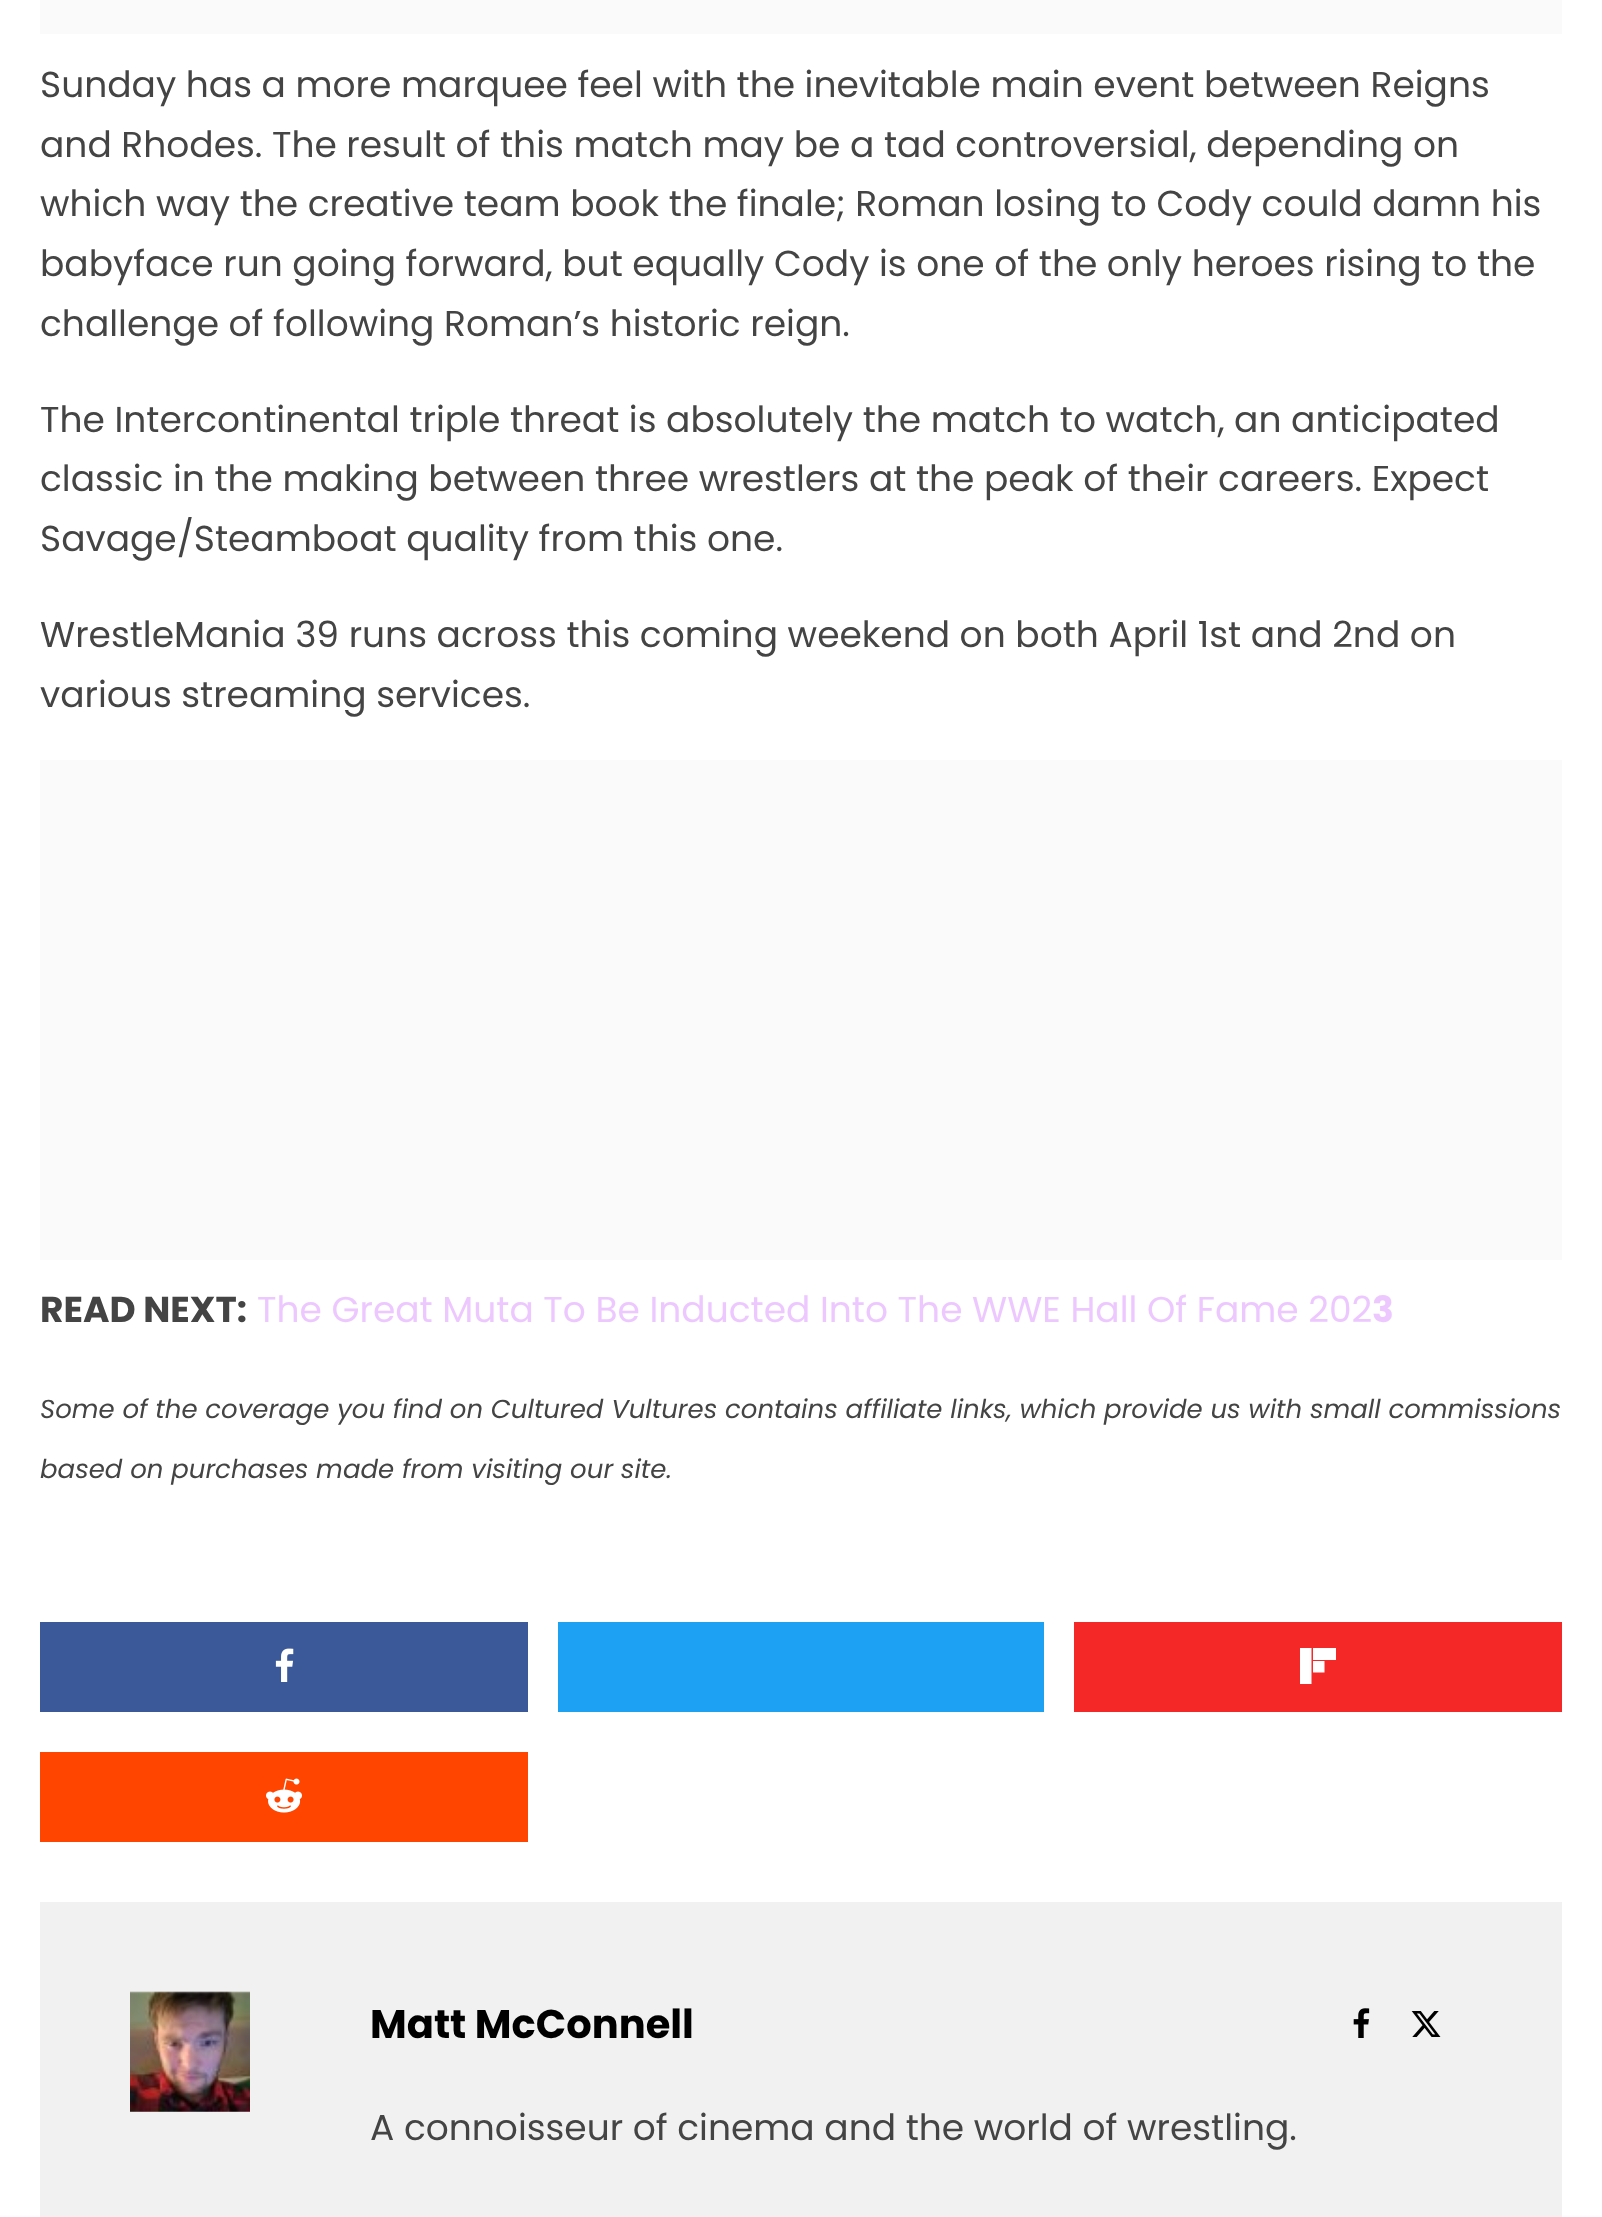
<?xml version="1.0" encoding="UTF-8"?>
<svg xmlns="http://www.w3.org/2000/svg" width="1602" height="2217">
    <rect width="100%" height="100%" fill="#FFFFFF"/>
    <rect x="40" y="0" width="1522" height="34" fill="#FAFAFA"/>
    <text font-family="Poppins" font-size="36" fill="#444444">
        <tspan x="40" y="97">Sunday has a more marquee feel with the inevitable main event between Reigns</tspan>
        <tspan x="40" y="157">and Rhodes. The result of this match may be a tad controversial, depending on</tspan>
        <tspan x="40" y="216">which way the creative team book the finale; Roman losing to Cody could damn his</tspan>
        <tspan x="40" y="276">babyface run going forward, but equally Cody is one of the only heroes rising to the</tspan>
        <tspan x="40" y="336">challenge of following Roman’s historic reign.</tspan>
    </text>
    <text font-family="Poppins" font-size="36" fill="#444444">
        <tspan x="40" y="432">The Intercontinental triple threat is absolutely the match to watch, an anticipated</tspan>
        <tspan x="40" y="491">classic in the making between three wrestlers at the peak of their careers. Expect</tspan>
        <tspan x="40" y="551">Savage/Steamboat quality from this one.</tspan>
    </text>
    <text font-family="Poppins" font-size="36" fill="#444444">
        <tspan x="40" y="647">WrestleMania 39 runs across this coming weekend on both April 1st and 2nd on</tspan>
        <tspan x="40" y="707">various streaming services.</tspan>
    </text>
    <rect x="40" y="760" width="1522" height="500" fill="#FAFAFA"/>
    <text x="40" y="1322" font-family="Poppins" font-size="36" font-weight="700" fill="#444444">READ NEXT:</text>
    <text x="257" y="1322" font-family="Poppins" font-size="36" fill="#EDC8FF">The Great Muta To Be Inducted Into The WWE Hall Of Fame 202</text>
    <text x="1372" y="1322" font-family="Poppins" font-size="36" font-weight="700" fill="#EDC8FF">3</text>
    <text x="40" y="1418" font-family="Poppins" font-size="26" font-style="italic" fill="#444444">Some of the coverage you find on Cultured Vultures contains affiliate links, which provide us with small commissions</text>
    <text x="40" y="1478" font-family="Poppins" font-size="26" font-style="italic" fill="#444444">based on purchases made from visiting our site.</text>
    <rect x="40" y="1622" width="488" height="90" fill="#3B5998"/>
    <image x="275" y="1648" width="19" height="34" href="img_01.png"/>
    <rect x="558" y="1622" width="486" height="90" fill="#1DA1F2"/>
    <rect x="1074" y="1622" width="488" height="90" fill="#F52828"/>
    <path d="M 1300 1648 H 1311.5 V 1684 H 1300 Z M 1313 1661 H 1324.5 V 1672.5 H 1313 Z M 1313 1648 H 1336 V 1660 H 1313 Z" fill="#FFFFFF"/>
    <rect x="40" y="1752" width="488" height="90" fill="#FF4500"/>
    <image x="266" y="1778" width="36" height="35" href="img_02.png"/>
    <rect x="40" y="1902" width="1522" height="315" fill="#F1F1F1"/>
    <image x="130" y="1991" width="120" height="121" href="img_03.png"/>
    <text x="370" y="2038" font-family="Poppins" font-size="40" font-weight="700" fill="#000000">Matt McConnell</text>
    <image x="1353" y="2008" width="17" height="30" href="img_04.png"/>
    <image x="1411" y="2011" width="30" height="26" href="img_05.png"/>
    <text x="370" y="2140" font-family="Poppins" font-size="36" fill="#444444">A connoisseur of cinema and the world of wrestling.</text>
</svg>
